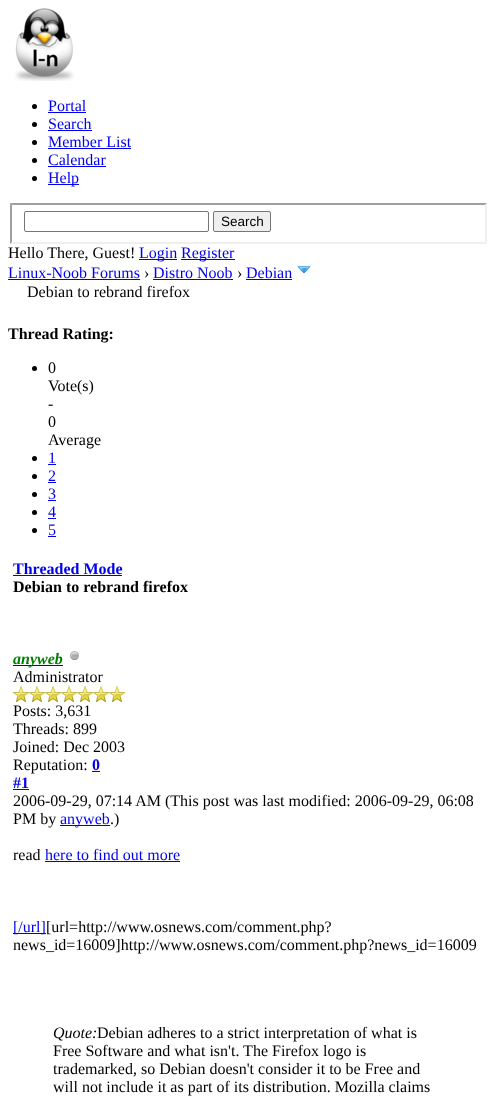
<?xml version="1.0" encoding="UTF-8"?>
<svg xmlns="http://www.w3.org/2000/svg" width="497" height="1100">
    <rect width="100%" height="100%" fill="#FFFFFF"/>
    <image x="15" y="8" width="59" height="73" href="img_01.png"/>
    <circle cx="34.5" cy="106.5" r="2.5" fill="#000000"/>
    <text x="48" y="111" font-family="Liberation Serif" font-size="16" fill="#0000EE">Portal</text>
    <rect x="48" y="112" width="38" height="1" fill="#0000EE"/>
    <circle cx="34.5" cy="124.5" r="2.5" fill="#000000"/>
    <text x="48" y="129" font-family="Liberation Serif" font-size="16" fill="#0000EE">Search</text>
    <rect x="48" y="130" width="44" height="1" fill="#0000EE"/>
    <circle cx="34.5" cy="142.5" r="2.5" fill="#000000"/>
    <text x="48" y="147" font-family="Liberation Serif" font-size="16" fill="#0000EE">Member List</text>
    <rect x="48" y="148" width="83" height="1" fill="#0000EE"/>
    <circle cx="34.5" cy="160.5" r="2.5" fill="#000000"/>
    <text x="48" y="165" font-family="Liberation Serif" font-size="16" fill="#0000EE">Calendar</text>
    <rect x="48" y="166" width="58" height="1" fill="#0000EE"/>
    <circle cx="34.5" cy="178.5" r="2.5" fill="#000000"/>
    <rect x="48" y="184" width="31" height="1" fill="#0000EE"/>
    <text x="48" y="183" font-family="Liberation Serif" font-size="16" fill="#0000EE">Help</text>
    <path d="M 10 203 H 487 L 485 205 H 12 Z" fill="#9F9F9F"/>
    <path d="M 487 203 V 244 L 485 242 V 205 Z" fill="#EFEFEF"/>
    <path d="M 487 244 H 10 L 12 242 H 485 Z" fill="#EFEFEF"/>
    <path d="M 10 244 V 203 L 12 205 V 242 Z" fill="#9F9F9F"/>
    <rect x="24.5" y="211.5" width="184" height="20" rx="1.5" fill="none" stroke="#767676"/>
    <rect x="213.5" y="211.5" width="57" height="20" rx="1.5" fill="#EFEFEF" stroke="#767676"/>
    <text x="221" y="226" font-family="Liberation Sans" font-size="13.5" fill="#000000">Search</text>
    <text x="8" y="258" font-family="Liberation Serif" font-size="16" fill="#000000">Hello There, Guest!</text>
    <rect x="139" y="259" width="38" height="1" fill="#0000EE"/>
    <text x="139" y="258" font-family="Liberation Serif" font-size="16" fill="#0000EE">Login</text>
    <rect x="181" y="259" width="54" height="1" fill="#0000EE"/>
    <text x="181" y="258" font-family="Liberation Serif" font-size="16" fill="#0000EE">Register</text>
    <text x="8" y="278" font-family="Liberation Serif" font-size="16" fill="#0000EE">Linux-Noob Forums</text>
    <rect x="8" y="279" width="132" height="1" fill="#0000EE"/>
    <text x="153" y="278" font-family="Liberation Serif" font-size="16" fill="#0000EE">Distro Noob</text>
    <rect x="153" y="279" width="80" height="1" fill="#0000EE"/>
    <text x="246" y="278" font-family="Liberation Serif" font-size="16" fill="#0000EE">Debian</text>
    <rect x="246" y="279" width="46" height="1" fill="#0000EE"/>
    <image x="297" y="266" width="14" height="7" href="img_02.png"/>
    <text x="144" y="278" font-family="Liberation Serif" font-size="16" fill="#000000">›</text>
    <text x="237" y="278" font-family="Liberation Serif" font-size="16" fill="#000000">›</text>
    <text x="27" y="297" font-family="Liberation Serif" font-size="16" fill="#000000">Debian to rebrand firefox</text>
    <text x="8" y="339" font-family="Liberation Serif" font-size="16" font-weight="700" fill="#000000">Thread Rating:</text>
    <circle cx="34.5" cy="368.5" r="2.5" fill="#000000"/>
    <text font-family="Liberation Serif" font-size="16" fill="#000000">
        <tspan x="48" y="373">0</tspan>
        <tspan x="48" y="391">Vote(s)</tspan>
        <tspan x="48" y="409">-</tspan>
        <tspan x="48" y="427">0</tspan>
        <tspan x="48" y="445">Average</tspan>
    </text>
    <circle cx="34.5" cy="458.5" r="2.5" fill="#000000"/>
    <text x="48" y="463" font-family="Liberation Serif" font-size="16" fill="#0000EE">1</text>
    <rect x="48" y="464" width="8" height="1" fill="#0000EE"/>
    <circle cx="34.5" cy="476.5" r="2.5" fill="#000000"/>
    <text x="48" y="481" font-family="Liberation Serif" font-size="16" fill="#0000EE">2</text>
    <rect x="48" y="482" width="8" height="1" fill="#0000EE"/>
    <circle cx="34.5" cy="494.5" r="2.5" fill="#000000"/>
    <text x="48" y="499" font-family="Liberation Serif" font-size="16" fill="#0000EE">3</text>
    <rect x="48" y="500" width="8" height="1" fill="#0000EE"/>
    <circle cx="34.5" cy="512.5" r="2.5" fill="#000000"/>
    <text x="48" y="517" font-family="Liberation Serif" font-size="16" fill="#0000EE">4</text>
    <rect x="48" y="518" width="8" height="1" fill="#0000EE"/>
    <circle cx="34.5" cy="530.5" r="2.5" fill="#000000"/>
    <text x="48" y="535" font-family="Liberation Serif" font-size="16" fill="#0000EE">5</text>
    <rect x="48" y="536" width="8" height="1" fill="#0000EE"/>
    <text x="13" y="574" font-family="Liberation Serif" font-size="16" font-weight="700" fill="#0000EE">Threaded Mode</text>
    <rect x="13" y="575" width="109" height="1" fill="#0000EE"/>
    <text x="13" y="592" font-family="Liberation Serif" font-size="16" font-weight="700" fill="#000000">Debian to rebrand firefox</text>
    <rect x="13" y="665" width="50" height="1" fill="#0000EE"/>
    <text x="13" y="664" font-family="Liberation Serif" font-size="16" font-weight="700" font-style="italic" fill="#008000">anyweb</text>
    <image x="70" y="651" width="9" height="9" href="img_03.png"/>
    <text x="13" y="682" font-family="Liberation Serif" font-size="16" fill="#000000">Administrator</text>
    <image x="13" y="686" width="16" height="16" href="img_04.png"/>
    <image x="29" y="686" width="16" height="16" href="img_04.png"/>
    <image x="45" y="686" width="16" height="16" href="img_04.png"/>
    <image x="61" y="686" width="16" height="16" href="img_04.png"/>
    <image x="77" y="686" width="16" height="16" href="img_04.png"/>
    <image x="93" y="686" width="16" height="16" href="img_04.png"/>
    <image x="109" y="686" width="16" height="16" href="img_04.png"/>
    <text font-family="Liberation Serif" font-size="16" fill="#000000">
        <tspan x="13" y="716">Posts: 3,631</tspan>
        <tspan x="13" y="734">Threads: 899</tspan>
        <tspan x="13" y="752">Joined: Dec 2003</tspan>
        <tspan x="13" y="770">Reputation:</tspan>
    </text>
    <text x="92" y="770" font-family="Liberation Serif" font-size="16" font-weight="700" fill="#0000EE">0</text>
    <rect x="92" y="771" width="8" height="1" fill="#0000EE"/>
    <text x="13" y="788" font-family="Liberation Serif" font-size="16" font-weight="700" fill="#0000EE">#1</text>
    <rect x="13" y="789" width="16" height="1" fill="#0000EE"/>
    <text font-family="Liberation Serif" font-size="16" fill="#000000">
        <tspan x="13" y="806">2006-09-29, 07:14 AM (This post was last modified: 2006-09-29, 06:08</tspan>
        <tspan x="13" y="824">PM by</tspan>
    </text>
    <rect x="60" y="825" width="50" height="1" fill="#0000EE"/>
    <text x="60" y="824" font-family="Liberation Serif" font-size="16" fill="#0000EE">anyweb</text>
    <text x="110" y="824" font-family="Liberation Serif" font-size="16" fill="#000000">.)</text>
    <text x="13" y="860" font-family="Liberation Serif" font-size="16" fill="#000000">read</text>
    <text x="45" y="860" font-family="Liberation Serif" font-size="16" fill="#0000EE">here to find out more</text>
    <rect x="45" y="861" width="135" height="1" fill="#0000EE"/>
    <rect x="13" y="933" width="33" height="1" fill="#0000EE"/>
    <text x="13" y="932" font-family="Liberation Serif" font-size="16" fill="#0000EE">[/url]</text>
    <text x="46" y="932" font-family="Liberation Serif" font-size="16" fill="#000000">[url=http://www.osnews.com/comment.php?</text>
    <text x="13" y="950" font-family="Liberation Serif" font-size="16" fill="#000000">news_id=16009]http://www.osnews.com/comment.php?news_id=16009</text>
    <text x="53" y="1038" font-family="Liberation Serif" font-size="16" font-style="italic" fill="#000000">Quote:</text>
    <text x="97" y="1038" font-family="Liberation Serif" font-size="16" fill="#000000">Debian adheres to a strict interpretation of what is</text>
    <text font-family="Liberation Serif" font-size="16" fill="#000000">
        <tspan x="53" y="1056">Free Software and what isn't. The Firefox logo is</tspan>
        <tspan x="53" y="1074">trademarked, so Debian doesn't consider it to be Free and</tspan>
        <tspan x="53" y="1092">will not include it as part of its distribution. Mozilla claims</tspan>
    </text>
</svg>
